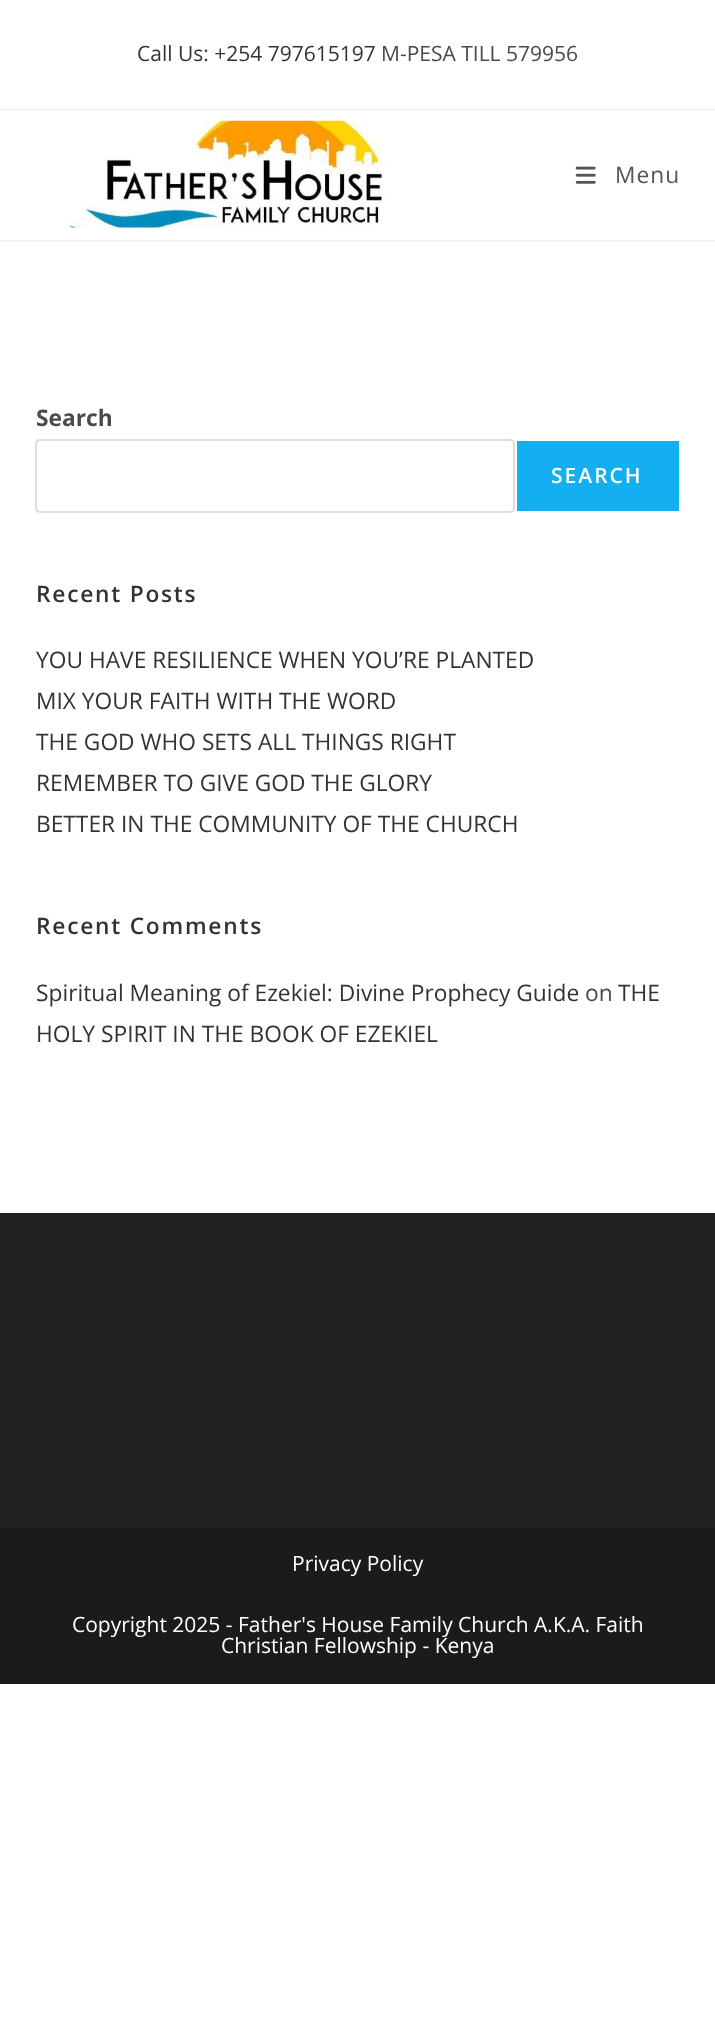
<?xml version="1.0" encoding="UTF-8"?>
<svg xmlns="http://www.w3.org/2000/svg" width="715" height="2044">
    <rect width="100%" height="100%" fill="#FFFFFF"/>
    <rect x="0" y="109" width="715" height="1" fill="#F1F1F1"/>
    <text x="137" y="61" font-family="Open Sans" font-size="21" fill="#333333">Call Us: +254 797615197</text>
    <text x="381" y="61" font-family="Open Sans" font-size="21" fill="#4A4A4A">M-PESA TILL 579956</text>
    <rect x="0" y="240" width="715" height="2" fill="#F1F1F1"/>
    <image x="65" y="120" width="320" height="108" href="img_01.png"/>
    <image x="575" y="166" width="21" height="18" href="img_02.png"/>
    <text x="615" y="183" font-family="Open Sans" font-size="22.75" letter-spacing="1" fill="#555555">Menu</text>
    <text x="36" y="426" font-family="Open Sans" font-size="22.75" font-weight="700" fill="#4A4A4A">Search</text>
    <rect x="36" y="440" width="478" height="72" rx="4" fill="none" stroke="#DDDDDD" stroke-width="2"/>
    <rect x="517" y="441" width="162" height="70" fill="#13AFF0"/>
    <text x="551" y="483" font-family="Open Sans" font-size="21" font-weight="600" letter-spacing="2" fill="#FFFFFF">SEARCH</text>
    <text x="36" y="602" font-family="Open Sans" font-size="22.75" font-weight="600" letter-spacing="1.75" fill="#333333">Recent Posts</text>
    <text font-family="Open Sans" font-size="22.75" fill="#333333">
        <tspan x="36" y="668">YOU HAVE RESILIENCE WHEN YOU’RE PLANTED</tspan>
        <tspan x="36" y="709">MIX YOUR FAITH WITH THE WORD</tspan>
        <tspan x="36" y="750">THE GOD WHO SETS ALL THINGS RIGHT</tspan>
        <tspan x="36" y="791">REMEMBER TO GIVE GOD THE GLORY</tspan>
        <tspan x="36" y="832">BETTER IN THE COMMUNITY OF THE CHURCH</tspan>
    </text>
    <text x="36" y="934" font-family="Open Sans" font-size="22.75" font-weight="600" letter-spacing="1.75" fill="#333333">Recent Comments</text>
    <text x="36" y="1001" font-family="Open Sans" font-size="22.75" fill="#333333">Spiritual Meaning of Ezekiel: Divine Prophecy Guide</text>
    <text x="585" y="1001" font-family="Open Sans" font-size="22.75" fill="#4A4A4A">on</text>
    <text x="618" y="1001" font-family="Open Sans" font-size="22.75" fill="#333333">THE</text>
    <text x="36" y="1042" font-family="Open Sans" font-size="22.75" fill="#333333">HOLY SPIRIT IN THE BOOK OF EZEKIEL</text>
    <rect x="0" y="1213" width="715" height="315" fill="#222222"/>
    <rect x="0" y="1528" width="715" height="156" fill="#1B1B1B"/>
    <text x="292" y="1571" font-family="Open Sans" font-size="21" fill="#FFFFFF">Privacy Policy</text>
    <text x="72" y="1632" font-family="Open Sans" font-size="21" fill="#FFFFFF">Copyright 2025 - Father's House Family Church A.K.A. Faith</text>
    <text x="221" y="1653" font-family="Open Sans" font-size="21" fill="#FFFFFF">Christian Fellowship - Kenya</text>
</svg>
